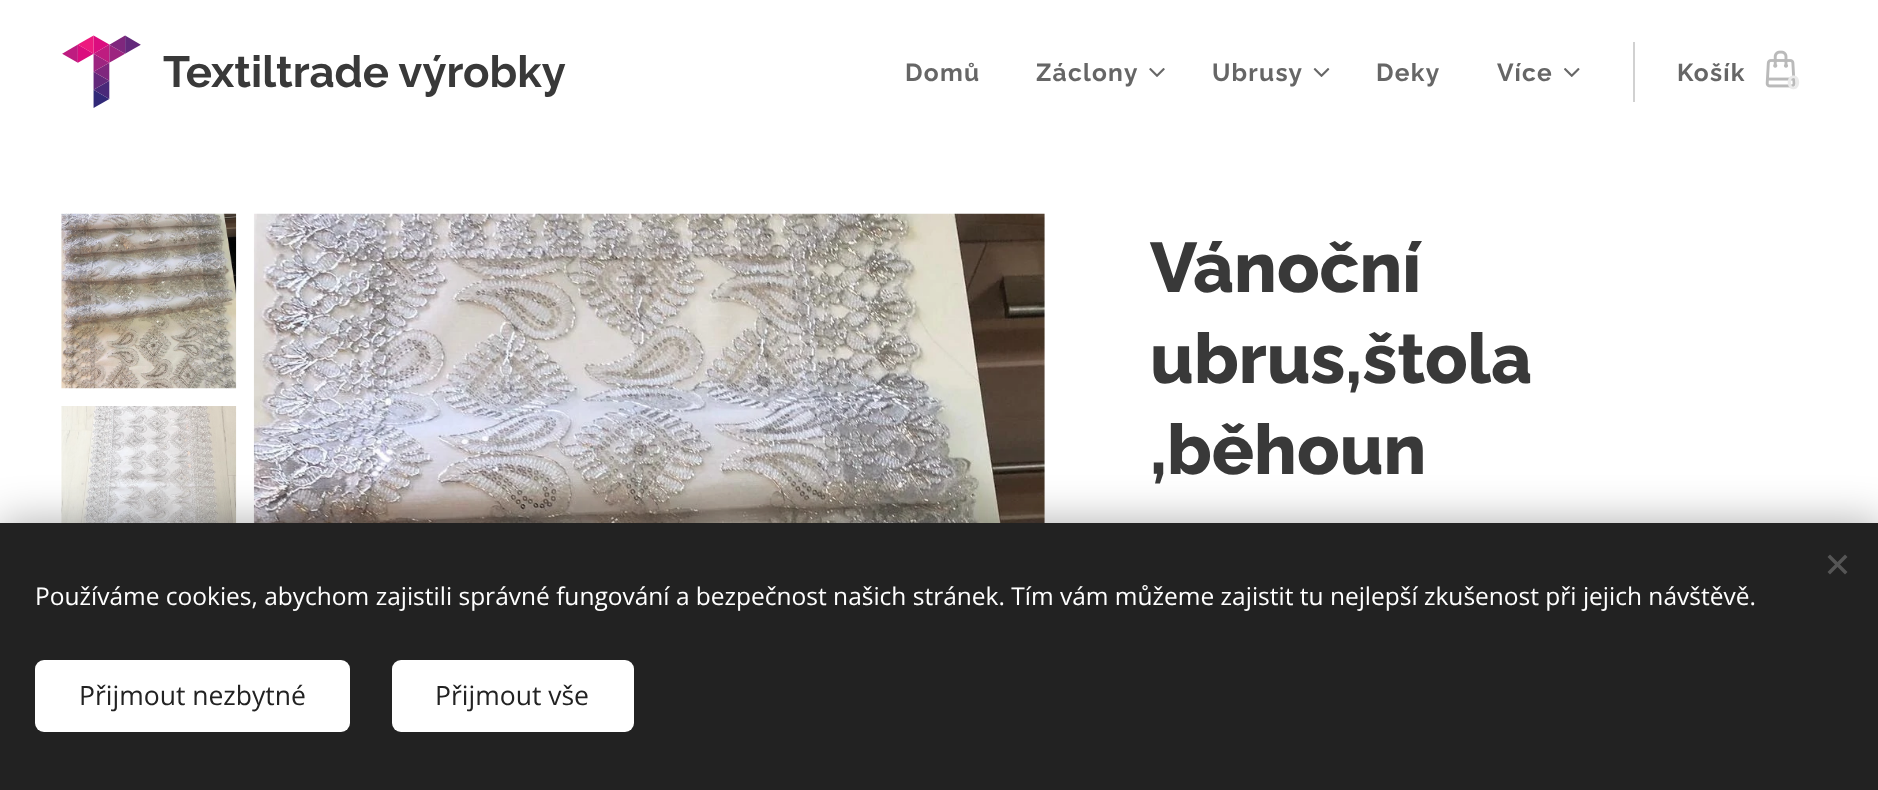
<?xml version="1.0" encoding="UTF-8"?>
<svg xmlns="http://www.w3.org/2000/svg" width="1878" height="790">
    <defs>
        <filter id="blur1" x="-50%" y="-200%" width="200%" height="500%"><feGaussianBlur stdDeviation="22"/></filter>
    </defs>
    <rect width="100%" height="100%" fill="#FFFFFF"/>
    <image x="62" y="35" width="79" height="73" href="img_01.png"/>
    <text x="163" y="87" font-family="Raleway" font-size="43.75" font-weight="700" fill="#393939">Textiltrade výrobky</text>
    <text x="905" y="81" font-family="Raleway" font-size="24.5" font-weight="700" letter-spacing="1.25" fill="#666666">Domů</text>
    <text x="1036" y="81" font-family="Raleway" font-size="24.5" font-weight="700" letter-spacing="1.25" fill="#666666">Záclony</text>
    <image x="1149" y="68" width="16" height="9" href="img_02.png"/>
    <text x="1212" y="81" font-family="Raleway" font-size="24.5" font-weight="700" letter-spacing="1.25" fill="#666666">Ubrusy</text>
    <image x="1313" y="68" width="17" height="9" href="img_03.png"/>
    <text x="1376" y="81" font-family="Raleway" font-size="24.5" font-weight="700" letter-spacing="1.25" fill="#666666">Deky</text>
    <text x="1497" y="81" font-family="Raleway" font-size="24.5" font-weight="700" letter-spacing="1.25" fill="#666666">Více</text>
    <image x="1564" y="68" width="16" height="9" href="img_04.png"/>
    <rect x="1633" y="42" width="2" height="60" fill="#D1D1D1"/>
    <text x="1677" y="81" font-family="Raleway" font-size="24.5" font-weight="700" letter-spacing="1.25" fill="#666666">Košík</text>
    <image x="1765" y="50" width="31" height="38" href="img_05.png"/>
    <text x="1787" y="89" font-family="Montserrat" font-size="19" font-weight="700" fill="#EAEAEA">0</text>
    <image x="61" y="213" width="176" height="176" href="img_06.png"/>
    <image x="61" y="406" width="176" height="117" href="img_07.png"/>
    <image x="253" y="213" width="792" height="310" href="img_08.png"/>
    <text font-family="Raleway" font-size="70" font-weight="800" fill="#393939">
        <tspan x="1150" y="292">Vánoční</tspan>
        <tspan x="1150" y="383">ubrus,štola</tspan>
        <tspan x="1150" y="474">,běhoun</tspan>
    </text>
    <rect x="0" y="523" width="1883" height="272" fill="#000000" fill-opacity="0.33" filter="url(#blur1)"/>
    <rect x="0" y="523" width="1878" height="267" fill="#222222"/>
    <path d="M 1827.5 572 L 1845 554.5 L 1847.5 557 L 1830 574.5 Z" fill="#555555"/>
    <path d="M 1830 554.5 L 1847.5 572 L 1845 574.5 L 1827.5 557 Z" fill="#555555"/>
    <text x="35" y="605" font-family="Open Sans" font-size="24.5" fill="#FFFFFF">Používáme cookies, abychom zajistili správné fungování a bezpečnost našich stránek. Tím vám můžeme zajistit tu nejlepší zkušenost při jejich návštěvě.</text>
    <rect x="35" y="660" width="315" height="72" rx="9" fill="#FFFFFF"/>
    <text x="79" y="705" font-family="Open Sans" font-size="26.5" fill="#222222">Přijmout nezbytné</text>
    <rect x="392" y="660" width="242" height="72" rx="9" fill="#FFFFFF"/>
    <text x="435" y="705" font-family="Open Sans" font-size="26.5" fill="#222222">Přijmout vše</text>
</svg>
